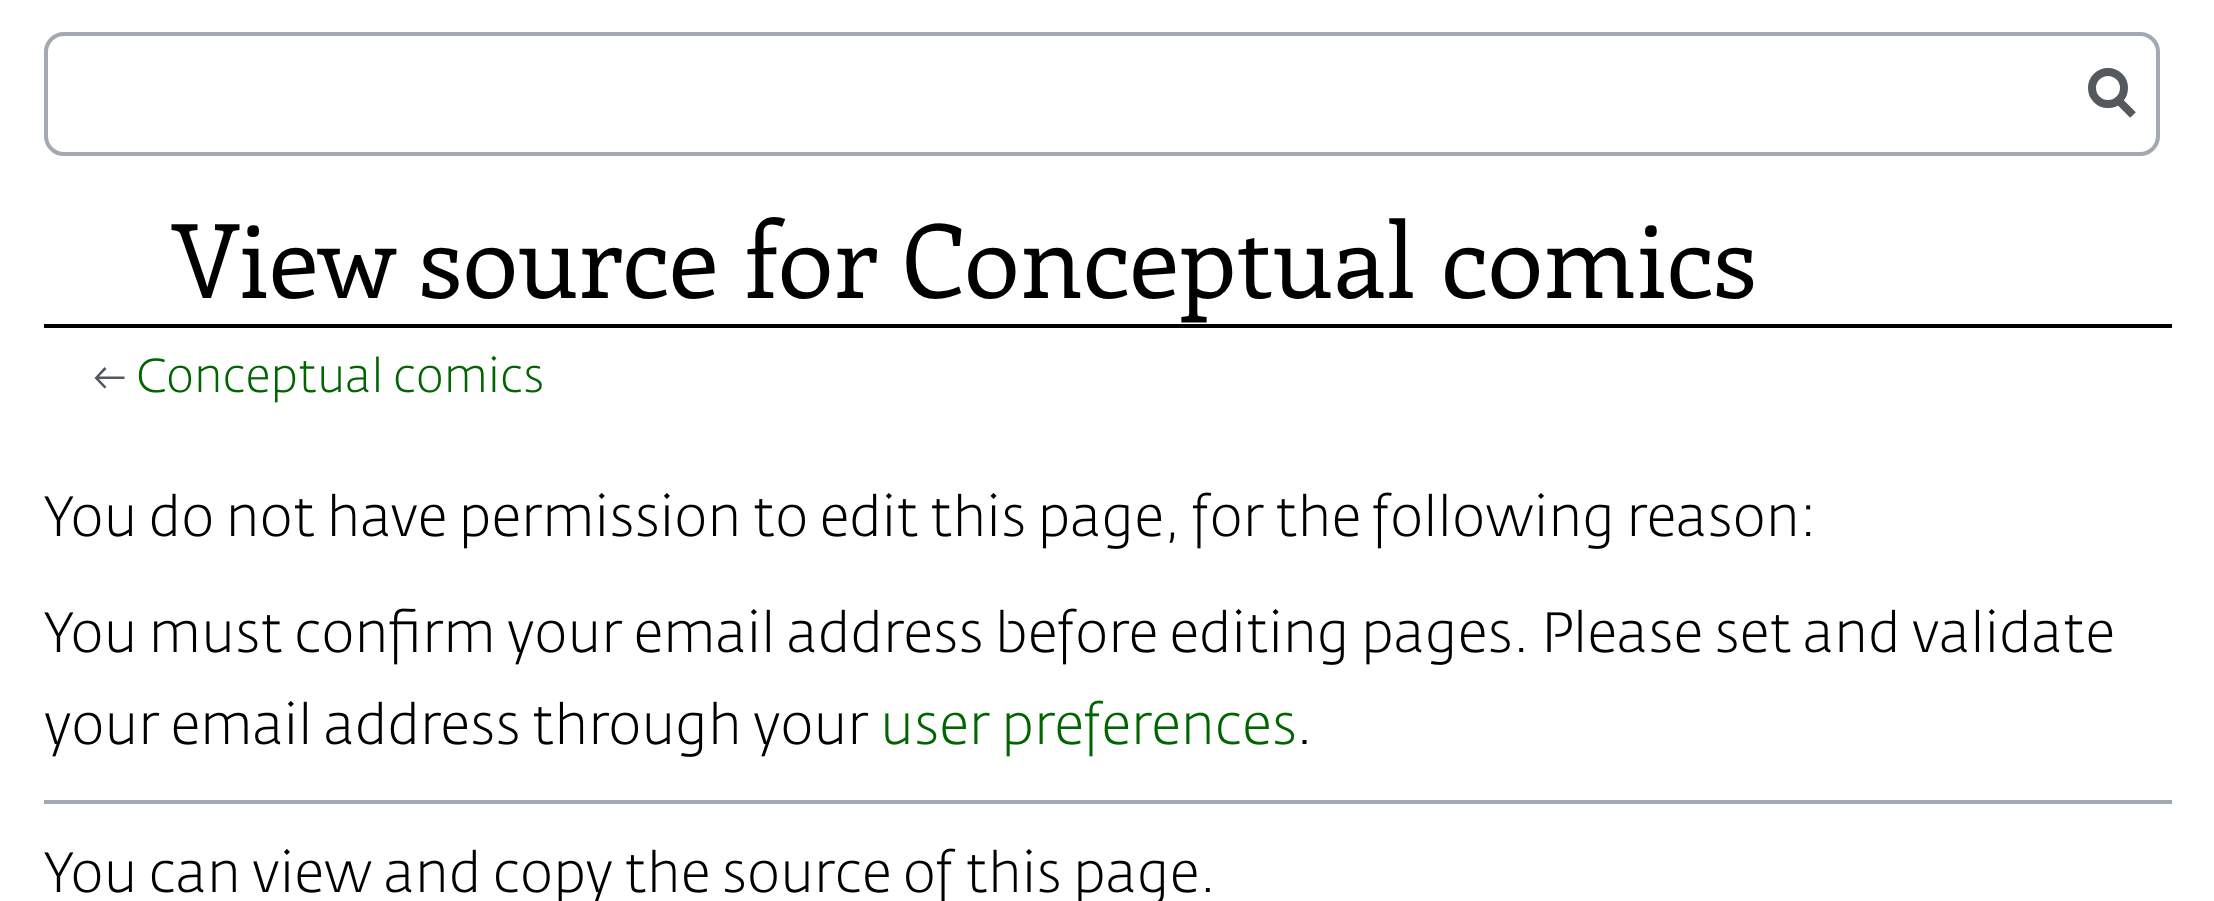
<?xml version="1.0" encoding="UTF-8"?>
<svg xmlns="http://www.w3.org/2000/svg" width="2214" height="901">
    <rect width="100%" height="100%" fill="#FFFFFF"/>
    <rect x="46" y="34" width="2112" height="120" rx="18" fill="none" stroke="#A2A9B1" stroke-width="4"/>
    <path d="M 2133 115 L 2117 99" fill="none" stroke="#54595D" stroke-width="8"/>
    <circle cx="2108" cy="88" r="16" fill="none" stroke="#54595D" stroke-width="8"/>
    <rect x="44" y="324" width="2128" height="4" fill="#000000"/>
    <text x="172" y="298" font-family="Enriqueta" font-size="102.4" fill="#000000">View source for Conceptual comics</text>
    <path d="M 104.5 388.5 L 94.5 378 L 104.5 367 L 106.5 369 L 99 376.5 H 124.5 V 379 H 99 L 106.5 387 Z" fill="#54595D"/>
    <image x="138" y="355" width="404" height="48" href="img_01.png"/>
    <image x="44" y="492" width="1767" height="57" href="img_02.png"/>
    <image x="44" y="608" width="2069" height="57" href="img_03.png"/>
    <image x="45" y="701" width="824" height="56" href="img_04.png"/>
    <image x="885" y="700" width="410" height="57" href="img_05.png"/>
    <path d="M 1302.5 744 V 740 H 1306.5 V 744 Z" fill="#000000"/>
    <rect x="44" y="800" width="2128" height="4" fill="#A2A9B1"/>
    <image x="44" y="848" width="1166" height="53" href="img_06.png"/>
</svg>
